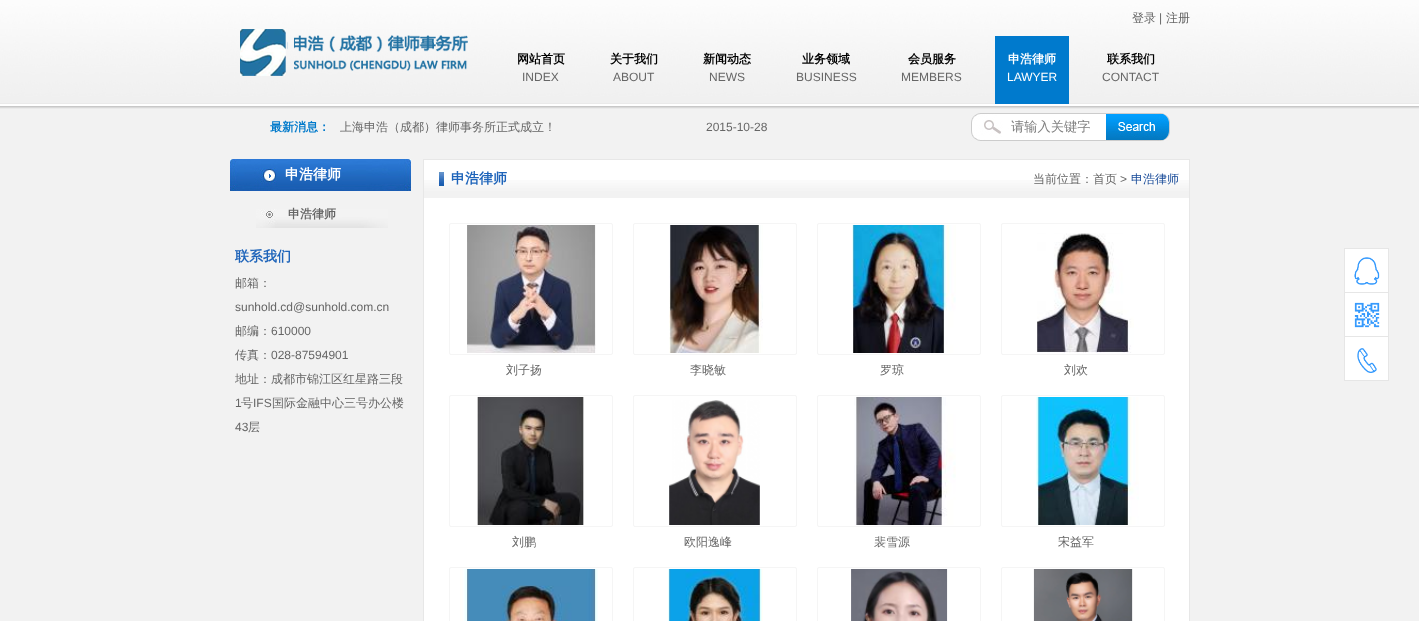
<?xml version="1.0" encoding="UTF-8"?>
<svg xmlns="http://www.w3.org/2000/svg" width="1419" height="621">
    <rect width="100%" height="100%" fill="#F2F2F2"/>
    <image x="0" y="0" width="1419" height="109" href="img_01.png"/>
    <text x="1132" y="22" font-family="WenQuanYi Zen Hei" font-size="12" font-weight="500" fill="#666666">登录</text>
    <text x="1159" y="22" font-family="Liberation Sans" font-size="12" fill="#666666">|</text>
    <text x="1166" y="22" font-family="WenQuanYi Zen Hei" font-size="12" font-weight="500" fill="#666666">注册</text>
    <image x="240" y="29" width="228" height="47" href="img_02.png"/>
    <text x="517" y="63" font-family="WenQuanYi Zen Hei" font-size="12" font-weight="700" fill="#000000">网站首页</text>
    <text x="522" y="81" font-family="Liberation Sans" font-size="12" fill="#666666">INDEX</text>
    <text x="610" y="63" font-family="WenQuanYi Zen Hei" font-size="12" font-weight="700" fill="#000000">关于我们</text>
    <text x="613" y="81" font-family="Liberation Sans" font-size="12" fill="#666666">ABOUT</text>
    <text x="703" y="63" font-family="WenQuanYi Zen Hei" font-size="12" font-weight="700" fill="#000000">新闻动态</text>
    <text x="709" y="81" font-family="Liberation Sans" font-size="12" fill="#666666">NEWS</text>
    <text x="802" y="63" font-family="WenQuanYi Zen Hei" font-size="12" font-weight="700" fill="#000000">业务领域</text>
    <text x="796" y="81" font-family="Liberation Sans" font-size="12" fill="#666666">BUSINESS</text>
    <text x="908" y="63" font-family="WenQuanYi Zen Hei" font-size="12" font-weight="700" fill="#000000">会员服务</text>
    <text x="901" y="81" font-family="Liberation Sans" font-size="12" fill="#666666">MEMBERS</text>
    <rect x="995" y="36" width="74" height="68" fill="#007ACD"/>
    <text x="1008" y="63" font-family="WenQuanYi Zen Hei" font-size="12" font-weight="700" fill="#FFFFFF">申浩律师</text>
    <text x="1007" y="81" font-family="Liberation Sans" font-size="12" fill="#FFFFFF">LAWYER</text>
    <text x="1107" y="63" font-family="WenQuanYi Zen Hei" font-size="12" font-weight="700" fill="#000000">联系我们</text>
    <text x="1102" y="81" font-family="Liberation Sans" font-size="12" fill="#666666">CONTACT</text>
    <text x="270" y="131" font-family="WenQuanYi Zen Hei" font-size="12" font-weight="700" fill="#017ACB">最新消息：</text>
    <text x="340" y="131" font-family="WenQuanYi Zen Hei" font-size="12" font-weight="500" fill="#666666">上海申浩（成都）律师事务所正式成立！</text>
    <text x="706" y="131" font-family="Liberation Sans" font-size="12" fill="#666666">2015-10-28</text>
    <image x="971" y="113" width="135" height="28" href="img_03.png"/>
    <text x="1011" y="131" font-family="WenQuanYi Zen Hei" font-size="13.25" font-weight="500" fill="#808080">请输入关键字</text>
    <image x="1106" y="113" width="64" height="28" href="img_04.png"/>
    <image x="230" y="159" width="181" height="32" href="img_05.png"/>
    <text x="285" y="179" font-family="WenQuanYi Zen Hei" font-size="14" font-weight="700" fill="#FFFFFF">申浩律师</text>
    <image x="256" y="209" width="132" height="19" href="img_06.png"/>
    <text x="288" y="218" font-family="WenQuanYi Zen Hei" font-size="12" font-weight="700" fill="#666666">申浩律师</text>
    <text x="235" y="261" font-family="WenQuanYi Zen Hei" font-size="14" font-weight="700" fill="#1E64BA">联系我们</text>
    <text x="235" y="287" font-family="WenQuanYi Zen Hei" font-size="12" font-weight="500" fill="#666666">邮箱：</text>
    <text x="235" y="311" font-family="Liberation Sans" font-size="12" fill="#666666">sunhold.cd@sunhold.com.cn</text>
    <text x="235" y="335" font-family="WenQuanYi Zen Hei" font-size="12" font-weight="500" fill="#666666">邮编：</text>
    <text x="271" y="335" font-family="Liberation Sans" font-size="12" fill="#666666">610000</text>
    <text x="235" y="359" font-family="WenQuanYi Zen Hei" font-size="12" font-weight="500" fill="#666666">传真：</text>
    <text x="271" y="359" font-family="Liberation Sans" font-size="12" fill="#666666">028-87594901</text>
    <text x="235" y="383" font-family="WenQuanYi Zen Hei" font-size="12" font-weight="500" fill="#666666">地址：成都市锦江区红星路三段</text>
    <text x="235" y="407" font-family="Liberation Sans" font-size="12" fill="#666666">1</text>
    <text x="241" y="407" font-family="WenQuanYi Zen Hei" font-size="12" font-weight="500" fill="#666666">号</text>
    <text x="253" y="407" font-family="Liberation Sans" font-size="12" fill="#666666">IFS</text>
    <text x="272" y="407" font-family="WenQuanYi Zen Hei" font-size="12" font-weight="500" fill="#666666">国际金融中心三号办公楼</text>
    <text x="235" y="431" font-family="Liberation Sans" font-size="12" fill="#666666">43</text>
    <text x="248" y="431" font-family="WenQuanYi Zen Hei" font-size="12" font-weight="500" fill="#666666">层</text>
    <rect x="423.5" y="159.5" width="766" height="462" fill="#FFFFFF" stroke="#E7E7E7"/>
    <image x="424" y="180" width="765" height="18" href="img_07.png"/>
    <image x="439" y="172" width="5" height="14" href="img_08.png"/>
    <text x="451" y="183" font-family="WenQuanYi Zen Hei" font-size="14" font-weight="700" fill="#1E64BA">申浩律师</text>
    <text x="1033" y="183" font-family="WenQuanYi Zen Hei" font-size="12" font-weight="500" fill="#666666">当前位置：首页</text>
    <text x="1120" y="183" font-family="Liberation Sans" font-size="12" fill="#666666">&gt;</text>
    <text x="1131" y="183" font-family="WenQuanYi Zen Hei" font-size="12" font-weight="500" fill="#164998">申浩律师</text>
    <rect x="449.5" y="223.5" width="163" height="131" rx="1.5" fill="none" stroke="#F5F5F5"/>
    <image x="467" y="225" width="129" height="128" href="img_09.png"/>
    <text x="506" y="374" font-family="WenQuanYi Zen Hei" font-size="12" font-weight="500" fill="#666666">刘子扬</text>
    <rect x="633.5" y="223.5" width="163" height="131" rx="1.5" fill="none" stroke="#F5F5F5"/>
    <image x="669" y="225" width="94" height="128" href="img_10.png"/>
    <text x="690" y="374" font-family="WenQuanYi Zen Hei" font-size="12" font-weight="500" fill="#666666">李晓敏</text>
    <rect x="817.5" y="223.5" width="163" height="131" rx="1.5" fill="none" stroke="#F5F5F5"/>
    <image x="852" y="225" width="104" height="128" href="img_11.png"/>
    <text x="880" y="374" font-family="WenQuanYi Zen Hei" font-size="12" font-weight="500" fill="#666666">罗琼</text>
    <rect x="1001.5" y="223.5" width="163" height="131" rx="1.5" fill="none" stroke="#F5F5F5"/>
    <image x="1037" y="233" width="97" height="120" href="img_12.png"/>
    <text x="1064" y="374" font-family="WenQuanYi Zen Hei" font-size="12" font-weight="500" fill="#666666">刘欢</text>
    <rect x="449.5" y="395.5" width="163" height="131" rx="1.5" fill="none" stroke="#F5F5F5"/>
    <image x="477" y="397" width="107" height="128" href="img_13.png"/>
    <text x="512" y="546" font-family="WenQuanYi Zen Hei" font-size="12" font-weight="500" fill="#666666">刘鹏</text>
    <rect x="633.5" y="395.5" width="163" height="131" rx="1.5" fill="none" stroke="#F5F5F5"/>
    <image x="669" y="400" width="91" height="125" href="img_14.png"/>
    <text x="684" y="546" font-family="WenQuanYi Zen Hei" font-size="12" font-weight="500" fill="#666666">欧阳逸峰</text>
    <rect x="817.5" y="395.5" width="163" height="131" rx="1.5" fill="none" stroke="#F5F5F5"/>
    <image x="854" y="397" width="102" height="128" href="img_15.png"/>
    <text x="874" y="546" font-family="WenQuanYi Zen Hei" font-size="12" font-weight="500" fill="#666666">裴雪源</text>
    <rect x="1001.5" y="395.5" width="163" height="131" rx="1.5" fill="none" stroke="#F5F5F5"/>
    <image x="1036" y="397" width="103" height="128" href="img_16.png"/>
    <text x="1058" y="546" font-family="WenQuanYi Zen Hei" font-size="12" font-weight="500" fill="#666666">宋益军</text>
    <rect x="449.5" y="567.5" width="163" height="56" rx="1.5" fill="none" stroke="#F5F5F5"/>
    <image x="460" y="569" width="138" height="52" href="img_17.png"/>
    <rect x="633.5" y="567.5" width="163" height="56" rx="1.5" fill="none" stroke="#F5F5F5"/>
    <image x="668" y="569" width="95" height="52" href="img_18.png"/>
    <rect x="817.5" y="567.5" width="163" height="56" rx="1.5" fill="none" stroke="#F5F5F5"/>
    <image x="851" y="569" width="97" height="52" href="img_19.png"/>
    <rect x="1001.5" y="567.5" width="163" height="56" rx="1.5" fill="none" stroke="#F5F5F5"/>
    <image x="1033" y="569" width="100" height="52" href="img_20.png"/>
    <rect x="1344.5" y="248.5" width="44" height="44" fill="#FFFFFF" stroke="#E6E6E6"/>
    <image x="1354" y="257" width="26" height="28" href="img_21.png"/>
    <rect x="1344.5" y="292.5" width="44" height="44" fill="#FFFFFF" stroke="#E6E6E6"/>
    <image x="1354" y="302" width="26" height="26" href="img_22.png"/>
    <rect x="1344.5" y="336.5" width="44" height="44" fill="#FFFFFF" stroke="#E6E6E6"/>
    <image x="1357" y="348" width="20" height="25" href="img_23.png"/>
</svg>
